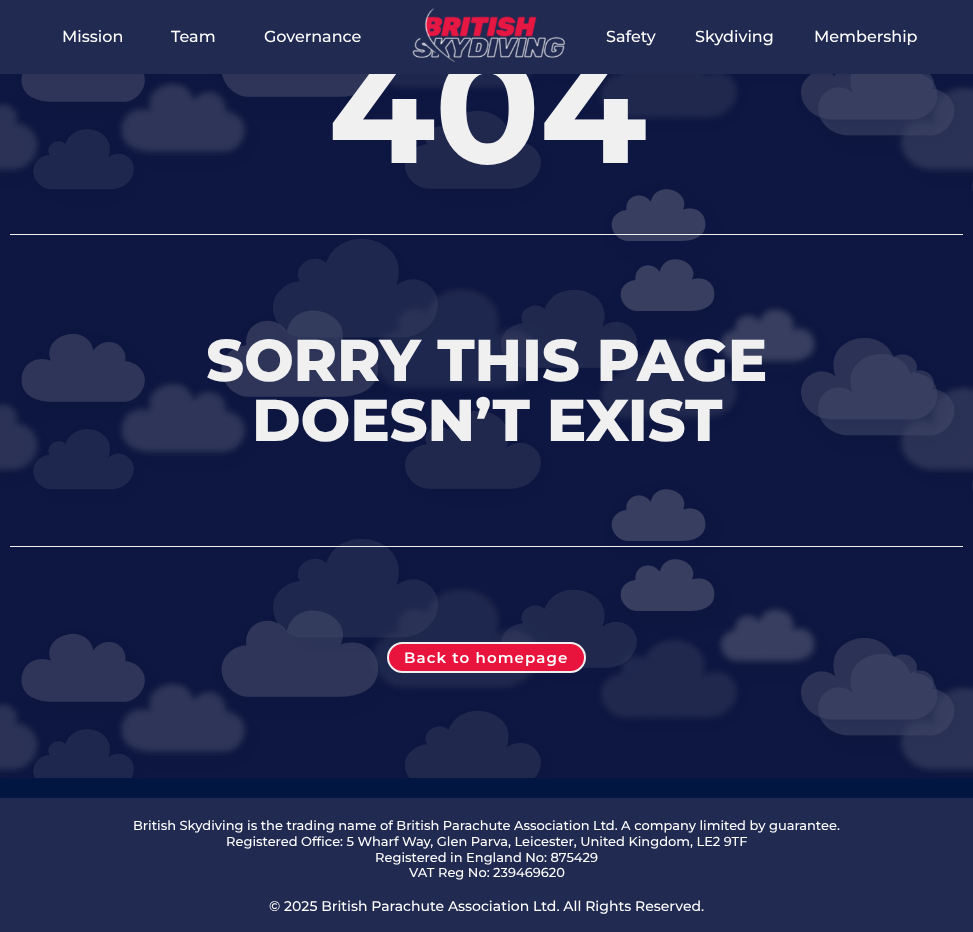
<?xml version="1.0" encoding="UTF-8"?>
<svg xmlns="http://www.w3.org/2000/svg" width="973" height="932">
    <rect width="100%" height="100%" fill="#0E1741"/>
    <image x="0" y="74" width="973" height="704" href="img_02.png"/>
    <text x="328" y="163" font-family="Montserrat" font-size="156" font-weight="700" letter-spacing="-1" fill="#F0F0F0">404</text>
    <rect x="0" y="0" width="973" height="74" fill="#212A51"/>
    <text x="62" y="42" font-family="Montserrat" font-size="16" font-weight="500" fill="#FFFFFF">Mission</text>
    <text x="171" y="42" font-family="Montserrat" font-size="16" font-weight="500" fill="#FFFFFF">Team</text>
    <text x="264" y="42" font-family="Montserrat" font-size="16" font-weight="500" fill="#FFFFFF">Governance</text>
    <image x="412" y="8" width="153" height="54" href="img_01.png"/>
    <text x="606" y="42" font-family="Montserrat" font-size="16" font-weight="500" fill="#FFFFFF">Safety</text>
    <text x="695" y="42" font-family="Montserrat" font-size="16" font-weight="500" fill="#FFFFFF">Skydiving</text>
    <text x="814" y="42" font-family="Montserrat" font-size="16" font-weight="500" fill="#FFFFFF">Membership</text>
    <rect x="10" y="234" width="953" height="1" fill="#F0F0F0"/>
    <rect x="10" y="546" width="953" height="1" fill="#F0F0F0"/>
    <text x="206" y="381" font-family="Montserrat" font-size="59" font-weight="800" letter-spacing="-0.25" fill="#F0F0F0">SORRY THIS PAGE</text>
    <text x="252" y="441" font-family="Montserrat" font-size="59" font-weight="800" letter-spacing="-0.25" fill="#F0F0F0">DOESN’T EXIST</text>
    <rect x="388" y="643" width="197" height="29" rx="14.5" fill="#E9143D" stroke="#F0F0F0" stroke-width="2"/>
    <text x="404" y="663" font-family="Montserrat" font-size="15" font-weight="600" letter-spacing="1.1" fill="#FFFFFF">Back to homepage</text>
    <rect x="0" y="778" width="973" height="20" fill="#011640"/>
    <rect x="0" y="798" width="973" height="134" fill="#212A51"/>
    <text x="133" y="830" font-family="Montserrat" font-size="13" font-weight="500" fill="#FFFFFF">British Skydiving is the trading name of British Parachute Association Ltd. A company limited by guarantee.</text>
    <text x="226" y="846" font-family="Montserrat" font-size="13" font-weight="500" fill="#FFFFFF">Registered Office: 5 Wharf Way, Glen Parva, Leicester, United Kingdom, LE2 9TF</text>
    <text x="375" y="862" font-family="Montserrat" font-size="13" font-weight="500" fill="#FFFFFF">Registered in England No: 875429</text>
    <text x="409" y="877" font-family="Montserrat" font-size="13" font-weight="500" fill="#FFFFFF">VAT Reg No: 239469620</text>
    <text x="269" y="911" font-family="Montserrat" font-size="14" font-weight="500" fill="#FFFFFF">© 2025 British Parachute Association Ltd. All Rights Reserved.</text>
</svg>
